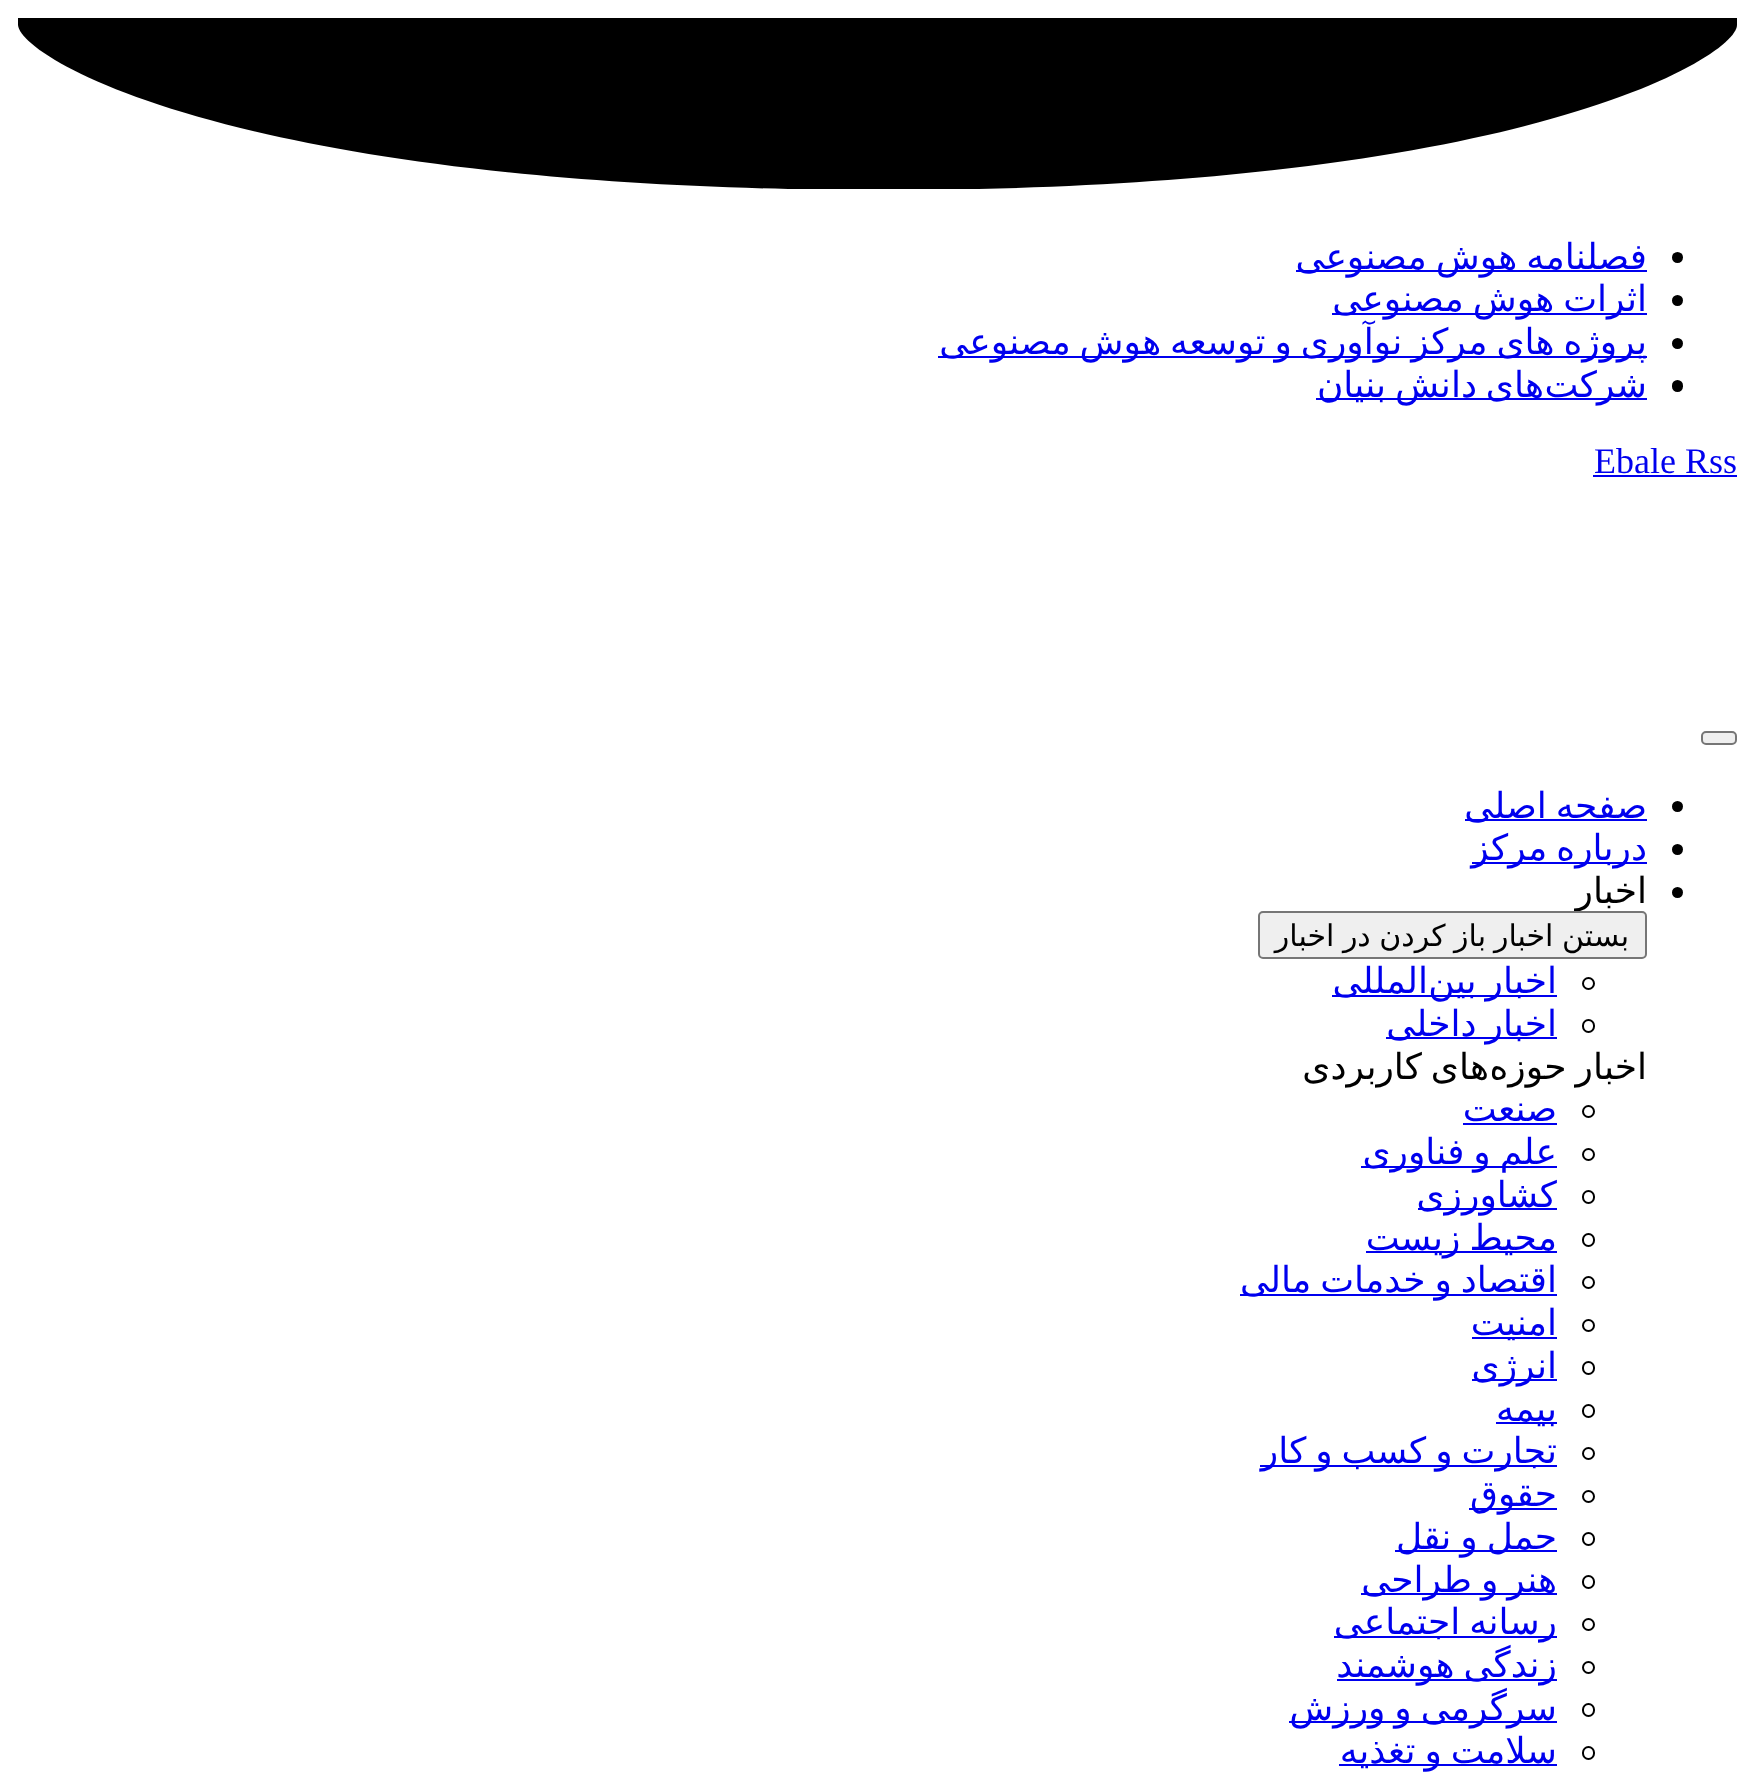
<?xml version="1.0" encoding="UTF-8"?>
<svg xmlns="http://www.w3.org/2000/svg" width="1755" height="1777">
    <defs>
        <clipPath id="clip1"><rect x="18" y="18" width="1719" height="171"/></clipPath>
    </defs>
    <rect width="100%" height="100%" fill="#FFFFFF"/>
    <g clip-path="url(#clip1)">
        <path d="M 1737 25 V 18 H 18 V 25 C 20 58 236 189 877 190 C 1519 191 1737 57 1737 25 Z" fill="#000000"/>
    </g>
    <circle cx="1677.5" cy="257.5" r="5.5" fill="#000000"/>
    <rect x="1296" y="270" width="351" height="2" fill="#0000EE"/>
    <text x="1647" y="269" word-spacing="-2.5" font-family="DejaVu Sans" font-size="36" direction="rtl" fill="#0000EE">فصلنامه هوش مصنوعی</text>
    <circle cx="1677.5" cy="300.5" r="5.5" fill="#000000"/>
    <rect x="1332" y="313" width="315" height="2" fill="#0000EE"/>
    <text x="1647" y="311" word-spacing="-2.5" font-family="DejaVu Sans" font-size="36" direction="rtl" fill="#0000EE">اثرات هوش مصنوعی</text>
    <circle cx="1677.5" cy="343.5" r="5.5" fill="#000000"/>
    <rect x="938" y="356" width="709" height="2" fill="#0000EE"/>
    <text x="1647" y="354" word-spacing="-2.5" font-family="DejaVu Sans" font-size="36" direction="rtl" fill="#0000EE">پروژه های مرکز نوآوری و توسعه هوش مصنوعی</text>
    <rect x="1672" y="380" width="11" height="12" rx="5.5" fill="#000000"/>
    <rect x="1316" y="398" width="331" height="2" fill="#0000EE"/>
    <text x="1647" y="397" font-family="DejaVu Sans" font-size="36" direction="rtl" fill="#0000EE">شرکت</text>
    <text x="1544" y="397" word-spacing="-2.5" font-family="DejaVu Sans" font-size="36" direction="rtl" fill="#0000EE">های دانش بنیان</text>
    <text x="1594" y="473" font-family="Liberation Serif" font-size="36" fill="#0000EE">Ebale Rss</text>
    <rect x="1593" y="475" width="144" height="2" fill="#0000EE"/>
    <rect x="1702" y="732" width="34" height="12" rx="4" fill="#EFEFEF" stroke="#767676" stroke-width="2"/>
    <circle cx="1677.5" cy="806.5" r="5.5" fill="#000000"/>
    <rect x="1465" y="819" width="182" height="2" fill="#0000EE"/>
    <text x="1647" y="818" word-spacing="-2.5" font-family="DejaVu Sans" font-size="36" direction="rtl" fill="#0000EE">صفحه اصلی</text>
    <circle cx="1677.5" cy="849.5" r="5.5" fill="#000000"/>
    <rect x="1472" y="862" width="175" height="2" fill="#0000EE"/>
    <text x="1647" y="860" word-spacing="-2.5" font-family="DejaVu Sans" font-size="36" direction="rtl" fill="#0000EE">درباره مرکز</text>
    <circle cx="1677.5" cy="892.5" r="5.5" fill="#000000"/>
    <text x="1647" y="903" font-family="DejaVu Sans" font-size="36" direction="rtl" fill="#000000">اخبار</text>
    <rect x="1259" y="912" width="387" height="46" rx="4" fill="#EFEFEF" stroke="#767676" stroke-width="2"/>
    <text x="1629" y="946" word-spacing="-1" font-family="DejaVu Sans" font-size="30" direction="rtl" fill="#000000">بستن اخبار</text>
    <text x="1486" y="946" word-spacing="-1" font-family="DejaVu Sans" font-size="30" direction="rtl" fill="#000000">باز کردن در اخبار</text>
    <circle cx="1588.5" cy="983.5" r="5.5" fill="none" stroke="#000000" stroke-width="2"/>
    <rect x="1332" y="995" width="225" height="2" fill="#0000EE"/>
    <text x="1557" y="993" word-spacing="-2.5" font-family="DejaVu Sans" font-size="36" direction="rtl" fill="#0000EE">اخبار بین</text>
    <text x="1428" y="993" font-family="DejaVu Sans" font-size="36" direction="rtl" fill="#0000EE">المللی</text>
    <rect x="1583" y="1020" width="11" height="12" rx="5.5" fill="none" stroke="#000000" stroke-width="2"/>
    <rect x="1386" y="1037" width="171" height="2" fill="#0000EE"/>
    <text x="1557" y="1036" word-spacing="-2.5" font-family="DejaVu Sans" font-size="36" direction="rtl" fill="#0000EE">اخبار داخلی</text>
    <text x="1647" y="1079" word-spacing="-2.5" font-family="DejaVu Sans" font-size="36" direction="rtl" fill="#000000">اخبار حوزه</text>
    <text x="1489" y="1079" word-spacing="-2.5" font-family="DejaVu Sans" font-size="36" direction="rtl" fill="#000000">های کاربردی</text>
    <circle cx="1588.5" cy="1111.5" r="5.5" fill="none" stroke="#000000" stroke-width="2"/>
    <text x="1557" y="1121" font-family="DejaVu Sans" font-size="36" direction="rtl" fill="#0000EE">صنعت</text>
    <rect x="1463" y="1123" width="94" height="2" fill="#0000EE"/>
    <circle cx="1588.5" cy="1154.5" r="5.5" fill="none" stroke="#000000" stroke-width="2"/>
    <rect x="1361" y="1166" width="196" height="2" fill="#0000EE"/>
    <text x="1557" y="1164" word-spacing="-2.5" font-family="DejaVu Sans" font-size="36" direction="rtl" fill="#0000EE">علم و فناوری</text>
    <rect x="1583" y="1191" width="11" height="12" rx="5.5" fill="none" stroke="#000000" stroke-width="2"/>
    <rect x="1418" y="1208" width="139" height="2" fill="#0000EE"/>
    <text x="1557" y="1207" font-family="DejaVu Sans" font-size="36" direction="rtl" fill="#0000EE">کشاورزی</text>
    <rect x="1583" y="1234" width="11" height="12" rx="5.5" fill="none" stroke="#000000" stroke-width="2"/>
    <rect x="1366" y="1251" width="191" height="2" fill="#0000EE"/>
    <text x="1557" y="1250" word-spacing="-2.5" font-family="DejaVu Sans" font-size="36" direction="rtl" fill="#0000EE">محیط زیست</text>
    <circle cx="1588.5" cy="1282.5" r="5.5" fill="none" stroke="#000000" stroke-width="2"/>
    <rect x="1240" y="1294" width="317" height="2" fill="#0000EE"/>
    <text x="1557" y="1292" word-spacing="-2.5" font-family="DejaVu Sans" font-size="36" direction="rtl" fill="#0000EE">اقتصاد و خدمات مالی</text>
    <circle cx="1588.5" cy="1325.5" r="5.5" fill="none" stroke="#000000" stroke-width="2"/>
    <rect x="1472" y="1337" width="85" height="2" fill="#0000EE"/>
    <text x="1557" y="1335" font-family="DejaVu Sans" font-size="36" direction="rtl" fill="#0000EE">امنیت</text>
    <rect x="1583" y="1362" width="11" height="12" rx="5.5" fill="none" stroke="#000000" stroke-width="2"/>
    <rect x="1472" y="1379" width="85" height="2" fill="#0000EE"/>
    <text x="1557" y="1378" font-family="DejaVu Sans" font-size="36" direction="rtl" fill="#0000EE">انرژی</text>
    <rect x="1583" y="1405" width="11" height="12" rx="5.5" fill="none" stroke="#000000" stroke-width="2"/>
    <rect x="1496" y="1422" width="61" height="2" fill="#0000EE"/>
    <text x="1557" y="1421" font-family="DejaVu Sans" font-size="36" direction="rtl" fill="#0000EE">بیمه</text>
    <circle cx="1588.5" cy="1453.5" r="5.5" fill="none" stroke="#000000" stroke-width="2"/>
    <rect x="1260" y="1465" width="297" height="2" fill="#0000EE"/>
    <text x="1557" y="1463" word-spacing="-2.5" font-family="DejaVu Sans" font-size="36" direction="rtl" fill="#0000EE">تجارت و کسب و کار</text>
    <circle cx="1588.5" cy="1496.5" r="5.5" fill="none" stroke="#000000" stroke-width="2"/>
    <rect x="1469" y="1508" width="88" height="2" fill="#0000EE"/>
    <text x="1557" y="1506" font-family="DejaVu Sans" font-size="36" direction="rtl" fill="#0000EE">حقوق</text>
    <rect x="1583" y="1533" width="11" height="12" rx="5.5" fill="none" stroke="#000000" stroke-width="2"/>
    <rect x="1395" y="1550" width="162" height="2" fill="#0000EE"/>
    <text x="1557" y="1549" word-spacing="-2.5" font-family="DejaVu Sans" font-size="36" direction="rtl" fill="#0000EE">حمل و نقل</text>
    <rect x="1583" y="1576" width="11" height="12" rx="5.5" fill="none" stroke="#000000" stroke-width="2"/>
    <rect x="1361" y="1593" width="196" height="2" fill="#0000EE"/>
    <text x="1557" y="1592" word-spacing="-2.5" font-family="DejaVu Sans" font-size="36" direction="rtl" fill="#0000EE">هنر و طراحی</text>
    <circle cx="1588.5" cy="1624.5" r="5.5" fill="none" stroke="#000000" stroke-width="2"/>
    <rect x="1334" y="1636" width="223" height="2" fill="#0000EE"/>
    <text x="1557" y="1634" word-spacing="-2.5" font-family="DejaVu Sans" font-size="36" direction="rtl" fill="#0000EE">رسانه اجتماعی</text>
    <circle cx="1588.5" cy="1667.5" r="5.5" fill="none" stroke="#000000" stroke-width="2"/>
    <rect x="1337" y="1679" width="220" height="2" fill="#0000EE"/>
    <text x="1557" y="1677" word-spacing="-2.5" font-family="DejaVu Sans" font-size="36" direction="rtl" fill="#0000EE">زندگی هوشمند</text>
    <rect x="1583" y="1704" width="11" height="12" rx="5.5" fill="none" stroke="#000000" stroke-width="2"/>
    <rect x="1289" y="1721" width="268" height="2" fill="#0000EE"/>
    <text x="1557" y="1720" word-spacing="-2.5" font-family="DejaVu Sans" font-size="36" direction="rtl" fill="#0000EE">سرگرمی و ورزش</text>
    <rect x="1583" y="1747" width="11" height="12" rx="5.5" fill="none" stroke="#000000" stroke-width="2"/>
    <rect x="1339" y="1764" width="218" height="2" fill="#0000EE"/>
    <text x="1557" y="1763" word-spacing="-2.5" font-family="DejaVu Sans" font-size="36" direction="rtl" fill="#0000EE">سلامت و تغذیه</text>
</svg>
